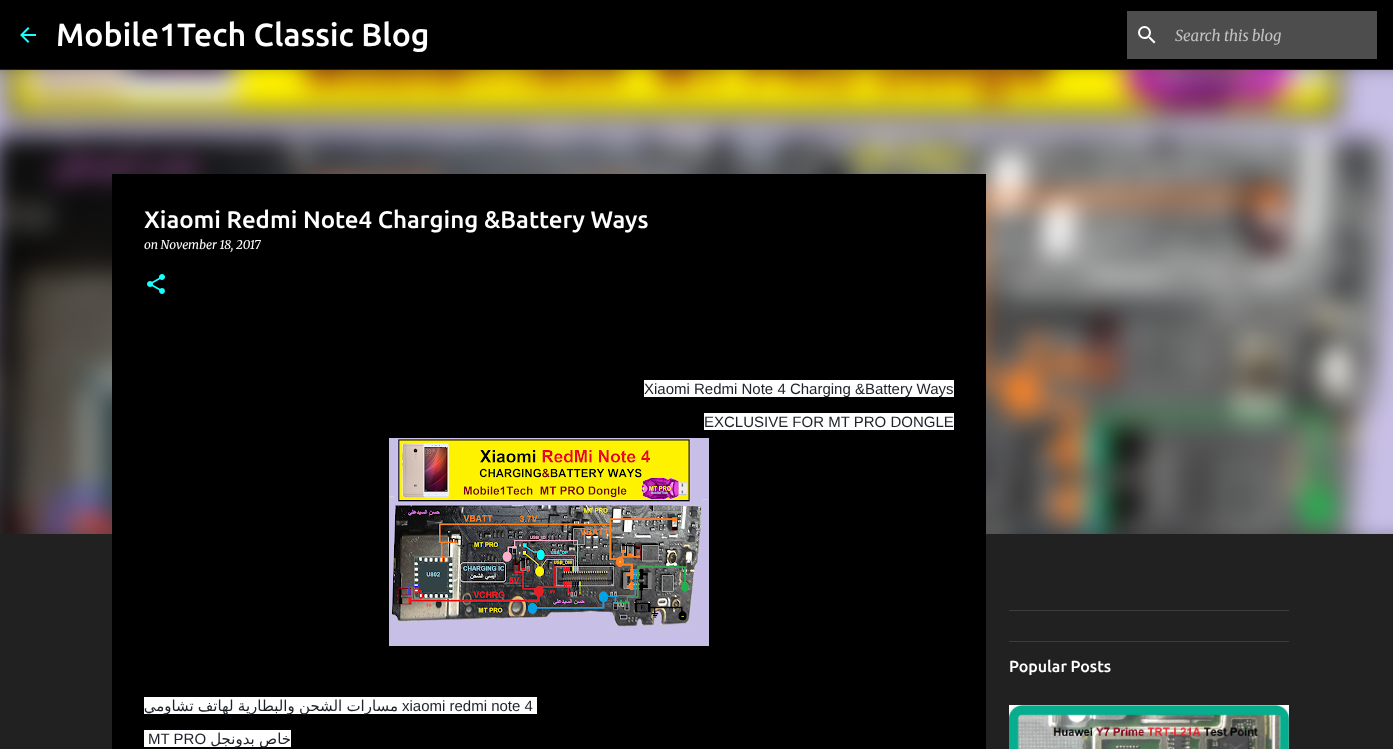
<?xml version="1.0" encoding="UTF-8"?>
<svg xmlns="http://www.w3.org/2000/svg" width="1393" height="749">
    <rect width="100%" height="100%" fill="#212121"/>
    <rect x="0" y="0" width="1393" height="69" fill="#000000"/>
    <image x="20" y="27" width="16" height="16" href="img_01.png"/>
    <text x="56" y="46" font-family="Ubuntu" font-size="32" font-weight="500" fill="#FFFFFF">Mobile1Tech Classic Blog</text>
    <rect x="1127" y="11" width="250" height="48" fill="#4D4D4D"/>
    <image x="1138" y="26" width="18" height="18" href="img_02.png"/>
    <text x="1175" y="41" font-family="Merriweather" font-size="15" font-style="italic" fill="#C2C2C2">Search this blog</text>
    <image x="0" y="70" width="1393" height="464" href="img_06.png"/>
    <rect x="112" y="174" width="874" height="575" fill="#000000"/>
    <text x="144" y="228" font-family="Ubuntu" font-size="24" font-weight="500" fill="#FFFFFF">Xiaomi Redmi Note4 Charging &amp;Battery Ways</text>
    <text x="144" y="249" font-family="Merriweather" font-size="12" font-style="italic" fill="#FFFFFF">on November 18, 2017</text>
    <image x="147" y="274" width="18" height="20" href="img_03.png"/>
    <rect x="644" y="380" width="310" height="17" fill="#FFFFFF"/>
    <text x="644" y="394" font-family="Liberation Sans" font-size="15" fill="#1D2129">Xiaomi Redmi Note 4 Charging &amp;Battery Ways</text>
    <rect x="704" y="413" width="250" height="17" fill="#FFFFFF"/>
    <text x="704" y="427" font-family="Liberation Sans" font-size="15" fill="#1D2129">EXCLUSIVE FOR MT PRO DONGLE</text>
    <image x="389" y="438" width="320" height="208" href="img_04.png"/>
    <rect x="144" y="697" width="393" height="17" fill="#FFFFFF"/>
    <text x="398" y="711" word-spacing="-0.5" font-family="DejaVu Sans" font-size="15" direction="rtl" fill="#1D2129">مسارات الشحن والبطارية لهاتف تشاومي</text>
    <text x="402" y="711" font-family="Liberation Sans" font-size="15" fill="#1D2129">xiaomi redmi note 4</text>
    <rect x="144" y="730" width="147" height="17" fill="#FFFFFF"/>
    <text x="148" y="744" font-family="Liberation Sans" font-size="15" fill="#1D2129">MT PRO</text>
    <text x="291" y="744" word-spacing="-0.5" font-family="DejaVu Sans" font-size="15" direction="rtl" fill="#1D2129">خاص بدونجل</text>
    <rect x="1009" y="610" width="280" height="1" fill="#3C3C3C"/>
    <rect x="1009" y="641" width="280" height="1" fill="#3C3C3C"/>
    <text x="1009" y="672" font-family="Ubuntu" font-size="16" font-weight="500" fill="#FFFFFF">Popular Posts</text>
    <image x="1009" y="705" width="280" height="44" href="img_05.png"/>
</svg>
